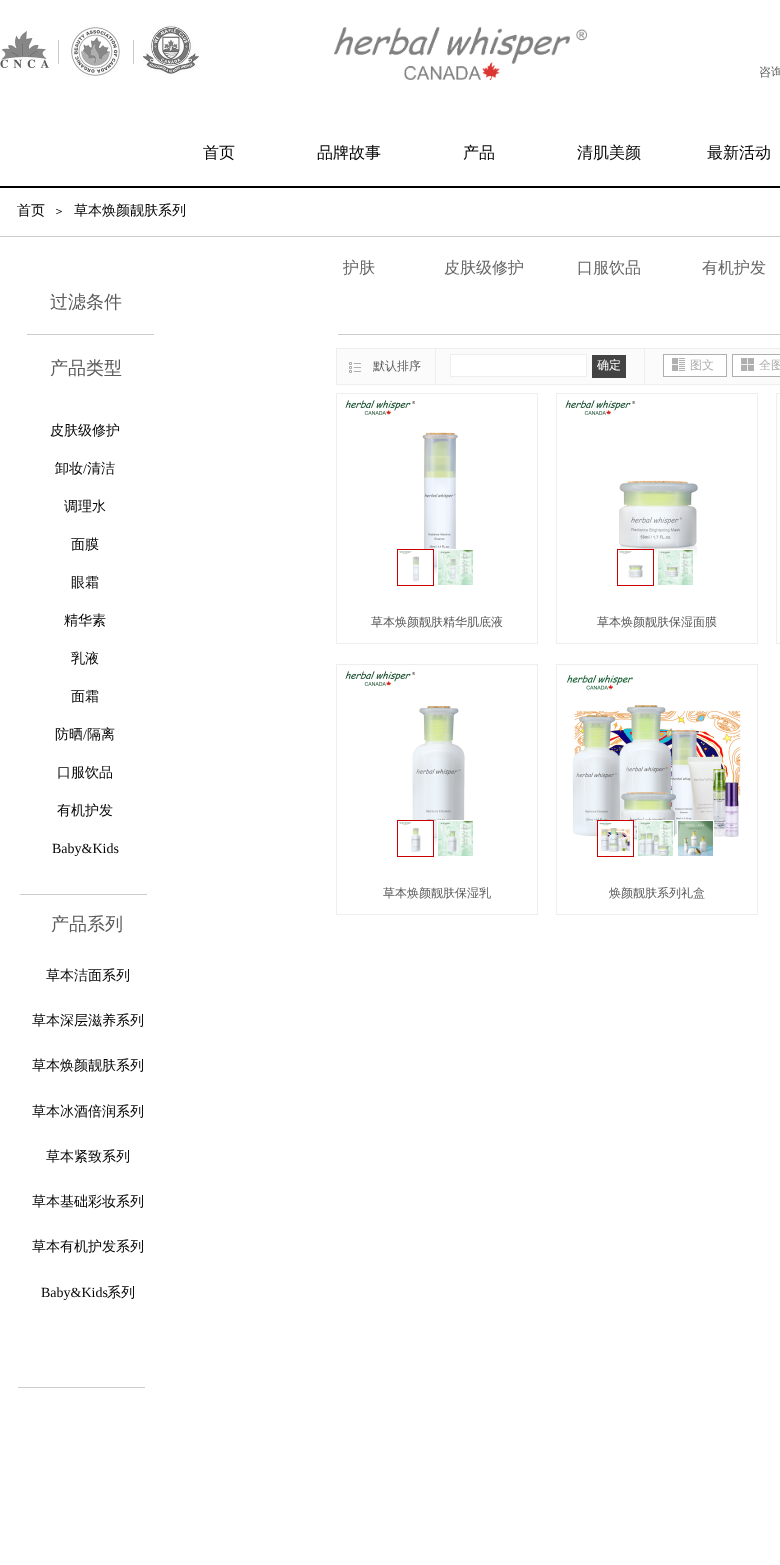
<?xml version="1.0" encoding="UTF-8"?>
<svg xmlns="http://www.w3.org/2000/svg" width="780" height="1565">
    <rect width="100%" height="100%" fill="#FFFFFF"/>
    <image x="0" y="31" width="49" height="38" href="img_01.png"/>
    <rect x="58" y="40" width="1" height="24" fill="#CCCCCC"/>
    <image x="71" y="27" width="49" height="49" href="img_02.png"/>
    <rect x="133" y="40" width="1" height="24" fill="#CCCCCC"/>
    <image x="143" y="26" width="56" height="48" href="img_03.png"/>
    <image x="334" y="26" width="253" height="54" href="img_04.png"/>
    <text x="759" y="76" font-family="WenQuanYi Zen Hei" font-size="12" font-weight="500" fill="#5A5A5A">咨询</text>
    <text x="203" y="158" font-family="WenQuanYi Zen Hei" font-size="16" font-weight="500" fill="#000000">首页</text>
    <text x="317" y="158" font-family="WenQuanYi Zen Hei" font-size="16" font-weight="500" fill="#000000">品牌故事</text>
    <text x="463" y="158" font-family="WenQuanYi Zen Hei" font-size="16" font-weight="500" fill="#000000">产品</text>
    <text x="577" y="158" font-family="WenQuanYi Zen Hei" font-size="16" font-weight="500" fill="#000000">清肌美颜</text>
    <text x="707" y="158" font-family="WenQuanYi Zen Hei" font-size="16" font-weight="500" fill="#000000">最新活动</text>
    <rect x="0" y="186" width="780" height="2" fill="#000000"/>
    <text x="17" y="215" font-family="WenQuanYi Zen Hei" font-size="14" font-weight="500" fill="#000000">首页</text>
    <text x="53" y="215" font-family="WenQuanYi Zen Hei" font-size="12" font-weight="500" fill="#000000">＞</text>
    <text x="74" y="215" font-family="WenQuanYi Zen Hei" font-size="14" font-weight="500" fill="#000000">草本焕颜靓肤系列</text>
    <rect x="0" y="236" width="780" height="1" fill="#CCCCCC"/>
    <text x="343" y="273" font-family="WenQuanYi Zen Hei" font-size="16" font-weight="500" fill="#666666">护肤</text>
    <text x="444" y="273" font-family="WenQuanYi Zen Hei" font-size="16" font-weight="500" fill="#666666">皮肤级修护</text>
    <text x="577" y="273" font-family="WenQuanYi Zen Hei" font-size="16" font-weight="500" fill="#666666">口服饮品</text>
    <text x="702" y="273" font-family="WenQuanYi Zen Hei" font-size="16" font-weight="500" fill="#666666">有机护发</text>
    <text x="50" y="308" font-family="WenQuanYi Zen Hei" font-size="18" font-weight="500" fill="#5A5A5A">过滤条件</text>
    <rect x="27" y="334" width="127" height="1" fill="#CCCCCC"/>
    <rect x="338" y="334" width="442" height="1" fill="#CCCCCC"/>
    <text x="50" y="374" font-family="WenQuanYi Zen Hei" font-size="18" font-weight="500" fill="#5A5A5A">产品类型</text>
    <rect x="336.5" y="348.5" width="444" height="36" fill="#FBFBFB" stroke="#EEEEEE"/>
    <image x="349" y="362" width="12" height="11" href="img_05.png"/>
    <rect x="435" y="349" width="1" height="35" fill="#EEEEEE"/>
    <text x="373" y="370" font-family="WenQuanYi Zen Hei" font-size="12" font-weight="500" fill="#5A5A5A">默认排序</text>
    <rect x="450.5" y="354.5" width="136" height="22" fill="#FFFFFF" stroke="#EEEEEE"/>
    <rect x="644" y="349" width="1" height="35" fill="#EEEEEE"/>
    <rect x="592" y="355" width="34" height="23" fill="#434343"/>
    <text x="597" y="369" font-family="WenQuanYi Zen Hei" font-size="12" font-weight="500" fill="#FFFFFF">确定</text>
    <rect x="663.5" y="354.5" width="63" height="22" fill="#FFFFFF" stroke="#AFAFAF"/>
    <rect x="672" y="358" width="13" height="13" fill="#AFAFAF"/>
    <image x="672" y="358" width="13" height="13" href="img_06.png"/>
    <text x="690" y="369" font-family="WenQuanYi Zen Hei" font-size="12" font-weight="500" fill="#AFAFAF">图文</text>
    <rect x="732.5" y="354.5" width="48" height="22" fill="#FFFFFF" stroke="#AFAFAF"/>
    <rect x="741" y="358" width="13" height="13" fill="#AFAFAF"/>
    <image x="741" y="358" width="13" height="13" href="img_07.png"/>
    <text x="759" y="369" font-family="WenQuanYi Zen Hei" font-size="12" font-weight="500" fill="#AFAFAF">全图</text>
    <rect x="336.5" y="393.5" width="201" height="250" fill="none" stroke="#EEEEEE"/>
    <image x="345" y="400" width="113" height="175" href="img_08.png"/>
    <rect x="397" y="549" width="37" height="37" fill="#CC0000"/>
    <image x="398" y="550" width="35" height="35" href="img_09.png"/>
    <rect x="437.5" y="549.5" width="36" height="36" fill="none" stroke="#FFFFFF"/>
    <image x="438" y="550" width="35" height="35" href="img_10.png"/>
    <text x="371" y="626" font-family="WenQuanYi Zen Hei" font-size="12" font-weight="500" fill="#5A5A5A">草本焕颜靓肤精华肌底液</text>
    <rect x="556.5" y="393.5" width="201" height="250" fill="none" stroke="#EEEEEE"/>
    <image x="565" y="400" width="133" height="159" href="img_11.png"/>
    <rect x="617" y="549" width="37" height="37" fill="#CC0000"/>
    <image x="618" y="550" width="35" height="35" href="img_12.png"/>
    <rect x="657.5" y="549.5" width="36" height="36" fill="none" stroke="#FFFFFF"/>
    <image x="658" y="550" width="35" height="35" href="img_13.png"/>
    <text x="597" y="626" font-family="WenQuanYi Zen Hei" font-size="12" font-weight="500" fill="#5A5A5A">草本焕颜靓肤保湿面膜</text>
    <rect x="776.5" y="393.5" width="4" height="250" fill="none" stroke="#EEEEEE"/>
    <rect x="336.5" y="664.5" width="201" height="250" fill="none" stroke="#EEEEEE"/>
    <image x="345" y="671" width="120" height="174" href="img_14.png"/>
    <rect x="397" y="820" width="37" height="37" fill="#CC0000"/>
    <image x="398" y="821" width="35" height="35" href="img_15.png"/>
    <rect x="437.5" y="820.5" width="36" height="36" fill="none" stroke="#FFFFFF"/>
    <image x="438" y="821" width="35" height="35" href="img_16.png"/>
    <text x="383" y="897" font-family="WenQuanYi Zen Hei" font-size="12" font-weight="500" fill="#5A5A5A">草本焕颜靓肤保湿乳</text>
    <rect x="556.5" y="664.5" width="201" height="250" fill="none" stroke="#EEEEEE"/>
    <image x="566" y="675" width="175" height="166" href="img_17.png"/>
    <rect x="597" y="820" width="37" height="37" fill="#CC0000"/>
    <image x="598" y="821" width="35" height="35" href="img_18.png"/>
    <rect x="637.5" y="820.5" width="36" height="36" fill="none" stroke="#FFFFFF"/>
    <image x="638" y="821" width="35" height="35" href="img_19.png"/>
    <rect x="677.5" y="820.5" width="36" height="36" fill="none" stroke="#FFFFFF"/>
    <image x="678" y="821" width="35" height="35" href="img_20.png"/>
    <text x="609" y="897" font-family="WenQuanYi Zen Hei" font-size="12" font-weight="500" fill="#5A5A5A">焕颜靓肤系列礼盒</text>
    <text x="50" y="435" font-family="WenQuanYi Zen Hei" font-size="14" font-weight="500" fill="#000000">皮肤级修护</text>
    <text x="55" y="473" font-family="WenQuanYi Zen Hei" font-size="14" font-weight="500" fill="#000000">卸妆</text>
    <text x="83" y="473" font-family="Liberation Serif" font-size="14" fill="#000000">/</text>
    <text x="87" y="473" font-family="WenQuanYi Zen Hei" font-size="14" font-weight="500" fill="#000000">清洁</text>
    <text x="64" y="511" font-family="WenQuanYi Zen Hei" font-size="14" font-weight="500" fill="#000000">调理水</text>
    <text x="71" y="549" font-family="WenQuanYi Zen Hei" font-size="14" font-weight="500" fill="#000000">面膜</text>
    <text x="71" y="587" font-family="WenQuanYi Zen Hei" font-size="14" font-weight="500" fill="#000000">眼霜</text>
    <text x="64" y="625" font-family="WenQuanYi Zen Hei" font-size="14" font-weight="500" fill="#000000">精华素</text>
    <text x="71" y="663" font-family="WenQuanYi Zen Hei" font-size="14" font-weight="500" fill="#000000">乳液</text>
    <text x="71" y="701" font-family="WenQuanYi Zen Hei" font-size="14" font-weight="500" fill="#000000">面霜</text>
    <text x="55" y="739" font-family="WenQuanYi Zen Hei" font-size="14" font-weight="500" fill="#000000">防晒</text>
    <text x="83" y="739" font-family="Liberation Serif" font-size="14" fill="#000000">/</text>
    <text x="87" y="739" font-family="WenQuanYi Zen Hei" font-size="14" font-weight="500" fill="#000000">隔离</text>
    <text x="57" y="777" font-family="WenQuanYi Zen Hei" font-size="14" font-weight="500" fill="#000000">口服饮品</text>
    <text x="57" y="815" font-family="WenQuanYi Zen Hei" font-size="14" font-weight="500" fill="#000000">有机护发</text>
    <text x="52" y="853" font-family="Liberation Serif" font-size="14" fill="#000000">Baby&amp;Kids</text>
    <rect x="20" y="894" width="127" height="1" fill="#CCCCCC"/>
    <text x="51" y="930" font-family="WenQuanYi Zen Hei" font-size="18" font-weight="500" fill="#5A5A5A">产品系列</text>
    <text x="46" y="980" font-family="WenQuanYi Zen Hei" font-size="14" font-weight="500" fill="#000000">草本洁面系列</text>
    <text x="32" y="1025" font-family="WenQuanYi Zen Hei" font-size="14" font-weight="500" fill="#000000">草本深层滋养系列</text>
    <text x="32" y="1070" font-family="WenQuanYi Zen Hei" font-size="14" font-weight="500" fill="#000000">草本焕颜靓肤系列</text>
    <text x="32" y="1116" font-family="WenQuanYi Zen Hei" font-size="14" font-weight="500" fill="#000000">草本冰酒倍润系列</text>
    <text x="46" y="1161" font-family="WenQuanYi Zen Hei" font-size="14" font-weight="500" fill="#000000">草本紧致系列</text>
    <text x="32" y="1206" font-family="WenQuanYi Zen Hei" font-size="14" font-weight="500" fill="#000000">草本基础彩妆系列</text>
    <text x="32" y="1251" font-family="WenQuanYi Zen Hei" font-size="14" font-weight="500" fill="#000000">草本有机护发系列</text>
    <text x="41" y="1297" font-family="Liberation Serif" font-size="14" fill="#000000">Baby&amp;Kids</text>
    <text x="107" y="1297" font-family="WenQuanYi Zen Hei" font-size="14" font-weight="500" fill="#000000">系列</text>
    <rect x="18" y="1387" width="127" height="1" fill="#CCCCCC"/>
</svg>
